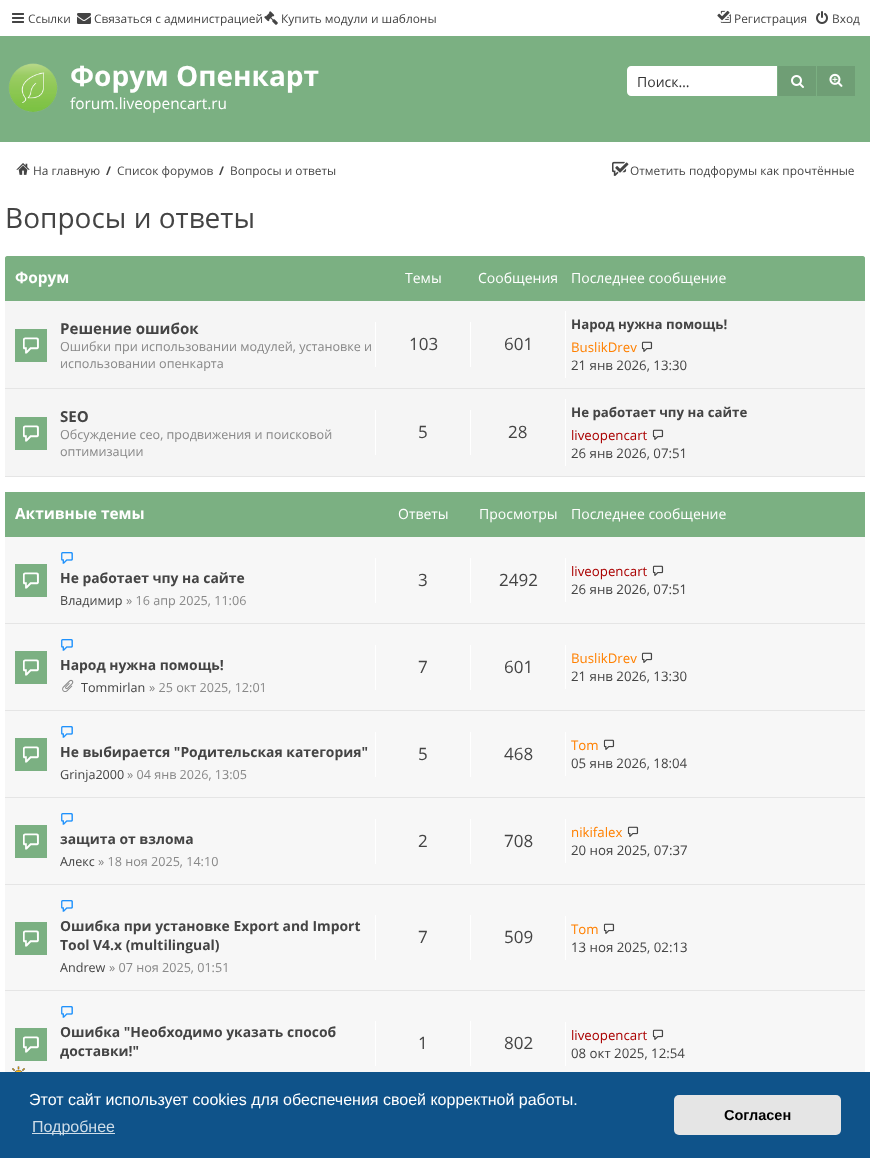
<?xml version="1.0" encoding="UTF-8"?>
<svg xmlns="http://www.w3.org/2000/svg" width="870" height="1158">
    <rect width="100%" height="100%" fill="#FFFFFF"/>
    <image x="12" y="13" width="12" height="10" href="img_01.png"/>
    <text x="28" y="23" font-family="Open Sans" font-size="11.9" fill="#444444">Ссылки</text>
    <image x="77" y="13" width="14" height="11" href="img_02.png"/>
    <text x="94" y="23" font-family="Open Sans" font-size="11.9" fill="#444444">Связаться с администрацией</text>
    <image x="264" y="11" width="14" height="14" href="img_03.png"/>
    <text x="281" y="23" font-family="Open Sans" font-size="11.9" fill="#444444">Купить модули и шаблоны</text>
    <image x="717" y="10" width="14" height="13" href="img_04.png"/>
    <text x="734" y="23" font-family="Open Sans" font-size="11.9" fill="#444444">Регистрация</text>
    <image x="816" y="11" width="12" height="13" href="img_05.png"/>
    <text x="832" y="23" font-family="Open Sans" font-size="11.9" fill="#444444">Вход</text>
    <rect x="0" y="36" width="870" height="106" fill="#7BB082"/>
    <image x="8" y="63" width="50" height="49" href="img_06.png"/>
    <text x="70" y="86" font-family="Open Sans" font-size="28" font-weight="700" fill="#FFFFFF">Форум Опенкарт</text>
    <text x="70" y="109" font-family="Open Sans" font-size="15.4" fill="#FFFFFF">forum.liveopencart.ru</text>
    <path d="M 631 66 H 777 V 96 H 631 C 629 96 627 94 627 92 V 70 C 627 68 629 66 631 66 Z" fill="#FFFFFF"/>
    <text x="637" y="87" font-family="Open Sans" font-size="14" fill="#333333">Поиск…</text>
    <rect x="778" y="66" width="38" height="30" fill="#6F9E75"/>
    <image x="791" y="75" width="13" height="13" href="img_07.png"/>
    <rect x="817" y="66" width="38" height="30" fill="#6F9E75"/>
    <image x="829" y="73" width="14" height="14" href="img_08.png"/>
    <image x="16" y="163" width="14" height="12" href="img_09.png"/>
    <text x="33" y="175" font-family="Open Sans" font-size="11.9" fill="#444444">На главную</text>
    <text x="106" y="175" font-family="Open Sans" font-size="11.9" font-weight="700" fill="#444444">/</text>
    <text x="117" y="175" font-family="Open Sans" font-size="11.9" fill="#444444">Список форумов</text>
    <text x="219" y="175" font-family="Open Sans" font-size="11.9" font-weight="700" fill="#444444">/</text>
    <text x="230" y="175" font-family="Open Sans" font-size="11.9" fill="#444444">Вопросы и ответы</text>
    <image x="612" y="161" width="17" height="15" href="img_10.png"/>
    <text x="630" y="175" font-family="Open Sans" font-size="11.9" fill="#444444">Отметить подфорумы как прочтённые</text>
    <text x="5" y="228" font-family="Open Sans" font-size="28" fill="#444444">Вопросы и ответы</text>
    <path d="M 7 256 H 863 C 864 256 865 257 865 258 V 477 H 5 V 258 C 5 257 6 256 7 256 Z" fill="#7BB082"/>
    <text x="15" y="283" font-family="Open Sans" font-size="15.4" font-weight="700" fill="#FFFFFF">Форум</text>
    <text x="405" y="283" font-family="Open Sans" font-size="14" fill="#FFFFFF">Темы</text>
    <text x="478" y="283" font-family="Open Sans" font-size="14" fill="#FFFFFF">Сообщения</text>
    <text x="571" y="283" font-family="Open Sans" font-size="14" fill="#FFFFFF">Последнее сообщение</text>
    <rect x="5" y="301" width="860" height="175" fill="#F5F5F5"/>
    <rect x="5" y="388" width="860" height="1" fill="#E5E5E5"/>
    <rect x="15" y="329" width="32" height="33" fill="#7BB082"/>
    <image x="23" y="337" width="16" height="17" href="img_11.png"/>
    <text x="60" y="334" font-family="Open Sans" font-size="15.1" font-weight="700" fill="#444444">Решение ошибок</text>
    <text font-family="Open Sans" font-size="12.6" fill="#888888">
        <tspan x="60" y="351">Ошибки при использовании модулей, установке и</tspan>
        <tspan x="60" y="368">использовании опенкарта</tspan>
    </text>
    <rect x="375" y="322" width="1" height="45" fill="#FFFFFF"/>
    <text x="409" y="350" font-family="Open Sans" font-size="17" fill="#444444">103</text>
    <rect x="470" y="322" width="1" height="45" fill="#FFFFFF"/>
    <text x="504" y="350" font-family="Open Sans" font-size="17" fill="#444444">601</text>
    <rect x="565" y="311" width="1" height="67" fill="#FFFFFF"/>
    <text x="571" y="329" font-family="Open Sans" font-size="13.25" font-weight="700" fill="#444444">Народ нужна помощь!</text>
    <text x="571" y="352" font-family="Open Sans" font-size="13.25" fill="#FF8000">BuslikDrev</text>
    <image x="641" y="341" width="12" height="11" href="img_12.png"/>
    <text x="571" y="370" font-family="Open Sans" font-size="13.25" fill="#444444">21 янв 2026, 13:30</text>
    <rect x="5" y="476" width="860" height="1" fill="#E5E5E5"/>
    <rect x="15" y="417" width="32" height="33" fill="#7BB082"/>
    <image x="23" y="425" width="16" height="17" href="img_11.png"/>
    <text x="60" y="422" font-family="Open Sans" font-size="15.1" font-weight="700" fill="#444444">SEO</text>
    <text font-family="Open Sans" font-size="12.6" fill="#888888">
        <tspan x="60" y="439">Обсуждение сео, продвижения и поисковой</tspan>
        <tspan x="60" y="456">оптимизации</tspan>
    </text>
    <rect x="375" y="410" width="1" height="45" fill="#FFFFFF"/>
    <text x="418" y="438" font-family="Open Sans" font-size="17" fill="#444444">5</text>
    <rect x="470" y="410" width="1" height="45" fill="#FFFFFF"/>
    <text x="508" y="438" font-family="Open Sans" font-size="17" fill="#444444">28</text>
    <rect x="565" y="399" width="1" height="67" fill="#FFFFFF"/>
    <text x="571" y="417" font-family="Open Sans" font-size="13.25" font-weight="700" fill="#444444">Не работает чпу на сайте</text>
    <text x="571" y="440" font-family="Open Sans" font-size="13.25" fill="#AA0000">liveopencart</text>
    <image x="652" y="429" width="12" height="11" href="img_12.png"/>
    <text x="571" y="458" font-family="Open Sans" font-size="13.25" fill="#444444">26 янв 2026, 07:51</text>
    <rect x="5" y="492" width="860" height="45" fill="#7BB082"/>
    <text x="15" y="519" font-family="Open Sans" font-size="15.4" font-weight="700" fill="#FFFFFF">Активные темы</text>
    <text x="398" y="519" font-family="Open Sans" font-size="14" fill="#FFFFFF">Ответы</text>
    <text x="479" y="519" font-family="Open Sans" font-size="14" fill="#FFFFFF">Просмотры</text>
    <text x="571" y="519" font-family="Open Sans" font-size="14" fill="#FFFFFF">Последнее сообщение</text>
    <rect x="5" y="537" width="860" height="86" fill="#F7F7F7"/>
    <rect x="5" y="623" width="860" height="1" fill="#E5E5E5"/>
    <rect x="15" y="564" width="32" height="33" fill="#7BB082"/>
    <image x="23" y="572" width="16" height="17" href="img_11.png"/>
    <image x="61" y="552" width="12" height="12" href="img_13.png"/>
    <text x="60" y="583" font-family="Open Sans" font-size="13.9" font-weight="700" fill="#444444">Не работает чпу на сайте</text>
    <text x="60" y="605" font-family="Open Sans" font-size="12.6" fill="#444444">Владимир</text>
    <text x="126" y="605" font-family="Open Sans" font-size="12.6" fill="#888888">» 16 апр 2025, 11:06</text>
    <rect x="375" y="558" width="1" height="45" fill="#FFFFFF"/>
    <text x="418" y="586" font-family="Open Sans" font-size="17" fill="#444444">3</text>
    <rect x="470" y="558" width="1" height="45" fill="#FFFFFF"/>
    <text x="499" y="586" font-family="Open Sans" font-size="17" fill="#444444">2492</text>
    <rect x="565" y="558" width="1" height="44" fill="#FFFFFF"/>
    <text x="571" y="576" font-family="Open Sans" font-size="13.25" fill="#AA0000">liveopencart</text>
    <image x="652" y="565" width="12" height="11" href="img_14.png"/>
    <text x="571" y="594" font-family="Open Sans" font-size="13.25" fill="#444444">26 янв 2026, 07:51</text>
    <rect x="5" y="624" width="860" height="86" fill="#F7F7F7"/>
    <rect x="5" y="710" width="860" height="1" fill="#E5E5E5"/>
    <rect x="15" y="651" width="32" height="33" fill="#7BB082"/>
    <image x="23" y="659" width="16" height="17" href="img_11.png"/>
    <image x="61" y="639" width="12" height="12" href="img_13.png"/>
    <text x="60" y="670" font-family="Open Sans" font-size="13.9" font-weight="700" fill="#444444">Народ нужна помощь!</text>
    <image x="62" y="679" width="12" height="13" href="img_15.png"/>
    <text x="81" y="692" font-family="Open Sans" font-size="12.6" fill="#444444">Tommirlan</text>
    <text x="149" y="692" font-family="Open Sans" font-size="12.6" fill="#888888">» 25 окт 2025, 12:01</text>
    <rect x="375" y="645" width="1" height="45" fill="#FFFFFF"/>
    <text x="418" y="673" font-family="Open Sans" font-size="17" fill="#444444">7</text>
    <rect x="470" y="645" width="1" height="45" fill="#FFFFFF"/>
    <text x="504" y="673" font-family="Open Sans" font-size="17" fill="#444444">601</text>
    <rect x="565" y="645" width="1" height="44" fill="#FFFFFF"/>
    <text x="571" y="663" font-family="Open Sans" font-size="13.25" fill="#FF8000">BuslikDrev</text>
    <image x="641" y="652" width="12" height="11" href="img_14.png"/>
    <text x="571" y="681" font-family="Open Sans" font-size="13.25" fill="#444444">21 янв 2026, 13:30</text>
    <rect x="5" y="711" width="860" height="86" fill="#F7F7F7"/>
    <rect x="5" y="797" width="860" height="1" fill="#E5E5E5"/>
    <rect x="15" y="738" width="32" height="33" fill="#7BB082"/>
    <image x="23" y="746" width="16" height="17" href="img_11.png"/>
    <image x="61" y="726" width="12" height="12" href="img_13.png"/>
    <text x="60" y="757" font-family="Open Sans" font-size="13.9" font-weight="700" fill="#444444">Не выбирается "Родительская категория"</text>
    <text x="60" y="779" font-family="Open Sans" font-size="12.6" fill="#444444">Grinja2000</text>
    <text x="127" y="779" font-family="Open Sans" font-size="12.6" fill="#888888">» 04 янв 2026, 13:05</text>
    <rect x="375" y="732" width="1" height="45" fill="#FFFFFF"/>
    <text x="418" y="760" font-family="Open Sans" font-size="17" fill="#444444">5</text>
    <rect x="470" y="732" width="1" height="45" fill="#FFFFFF"/>
    <text x="504" y="760" font-family="Open Sans" font-size="17" fill="#444444">468</text>
    <rect x="565" y="732" width="1" height="44" fill="#FFFFFF"/>
    <text x="571" y="750" font-family="Open Sans" font-size="13.25" fill="#FF8000">Tom</text>
    <image x="603" y="739" width="12" height="11" href="img_14.png"/>
    <text x="571" y="768" font-family="Open Sans" font-size="13.25" fill="#444444">05 янв 2026, 18:04</text>
    <rect x="5" y="798" width="860" height="86" fill="#F7F7F7"/>
    <rect x="5" y="884" width="860" height="1" fill="#E5E5E5"/>
    <rect x="15" y="825" width="32" height="33" fill="#7BB082"/>
    <image x="23" y="833" width="16" height="17" href="img_11.png"/>
    <image x="61" y="813" width="12" height="12" href="img_13.png"/>
    <text x="60" y="844" font-family="Open Sans" font-size="13.9" font-weight="700" fill="#444444">защита от взлома</text>
    <text x="60" y="866" font-family="Open Sans" font-size="12.6" fill="#444444">Алекс</text>
    <text x="98" y="866" font-family="Open Sans" font-size="12.6" fill="#888888">» 18 ноя 2025, 14:10</text>
    <rect x="375" y="819" width="1" height="45" fill="#FFFFFF"/>
    <text x="418" y="847" font-family="Open Sans" font-size="17" fill="#444444">2</text>
    <rect x="470" y="819" width="1" height="45" fill="#FFFFFF"/>
    <text x="504" y="847" font-family="Open Sans" font-size="17" fill="#444444">708</text>
    <rect x="565" y="819" width="1" height="44" fill="#FFFFFF"/>
    <text x="571" y="837" font-family="Open Sans" font-size="13.25" fill="#FF8000">nikifalex</text>
    <image x="627" y="826" width="12" height="11" href="img_14.png"/>
    <text x="571" y="855" font-family="Open Sans" font-size="13.25" fill="#444444">20 ноя 2025, 07:37</text>
    <rect x="5" y="885" width="860" height="105" fill="#F7F7F7"/>
    <rect x="5" y="990" width="860" height="1" fill="#E5E5E5"/>
    <rect x="15" y="922" width="32" height="33" fill="#7BB082"/>
    <image x="23" y="930" width="16" height="17" href="img_11.png"/>
    <image x="61" y="900" width="12" height="12" href="img_13.png"/>
    <text font-family="Open Sans" font-size="13.9" font-weight="700" fill="#444444">
        <tspan x="60" y="931">Ошибка при установке Export and Import</tspan>
        <tspan x="60" y="950">Tool V4.x (multilingual)</tspan>
    </text>
    <text x="60" y="972" font-family="Open Sans" font-size="12.6" fill="#444444">Andrew</text>
    <text x="109" y="972" font-family="Open Sans" font-size="12.6" fill="#888888">» 07 ноя 2025, 01:51</text>
    <rect x="375" y="915" width="1" height="45" fill="#FFFFFF"/>
    <text x="418" y="943" font-family="Open Sans" font-size="17" fill="#444444">7</text>
    <rect x="470" y="915" width="1" height="45" fill="#FFFFFF"/>
    <text x="504" y="943" font-family="Open Sans" font-size="17" fill="#444444">509</text>
    <rect x="565" y="916" width="1" height="44" fill="#FFFFFF"/>
    <text x="571" y="934" font-family="Open Sans" font-size="13.25" fill="#FF8000">Tom</text>
    <image x="603" y="923" width="12" height="11" href="img_14.png"/>
    <text x="571" y="952" font-family="Open Sans" font-size="13.25" fill="#444444">13 ноя 2025, 02:13</text>
    <rect x="5" y="991" width="860" height="81" fill="#F7F7F7"/>
    <rect x="15" y="1028" width="32" height="33" fill="#7BB082"/>
    <image x="23" y="1036" width="16" height="17" href="img_11.png"/>
    <image x="12" y="1066" width="13" height="6" href="img_16.png"/>
    <image x="61" y="1006" width="12" height="12" href="img_13.png"/>
    <text font-family="Open Sans" font-size="13.9" font-weight="700" fill="#444444">
        <tspan x="60" y="1037">Ошибка "Необходимо указать способ</tspan>
        <tspan x="60" y="1056">доставки!"</tspan>
    </text>
    <rect x="375" y="1021" width="1" height="45" fill="#FFFFFF"/>
    <text x="418" y="1049" font-family="Open Sans" font-size="17" fill="#444444">1</text>
    <rect x="470" y="1021" width="1" height="45" fill="#FFFFFF"/>
    <text x="504" y="1049" font-family="Open Sans" font-size="17" fill="#444444">802</text>
    <rect x="565" y="1022" width="1" height="44" fill="#FFFFFF"/>
    <text x="571" y="1040" font-family="Open Sans" font-size="13.25" fill="#AA0000">liveopencart</text>
    <image x="652" y="1029" width="12" height="11" href="img_14.png"/>
    <text x="571" y="1058" font-family="Open Sans" font-size="13.25" fill="#444444">08 окт 2025, 12:54</text>
    <rect x="0" y="1072" width="870" height="86" fill="#0F538A"/>
    <text x="29" y="1105" font-family="Liberation Sans" font-size="16" fill="#FFFFFF">Этот сайт использует cookies для обеспечения своей корректной работы.</text>
    <rect x="32" y="1133" width="83" height="1" fill="#CFDDE8"/>
    <text x="32" y="1132" font-family="Liberation Sans" font-size="16" fill="#CFDDE8">Подробнее</text>
    <rect x="674" y="1095" width="167" height="40" rx="5" fill="#E5E5E5"/>
    <text x="724" y="1120" font-family="Liberation Sans" font-size="14.5" font-weight="700" fill="#000000">Согласен</text>
</svg>
